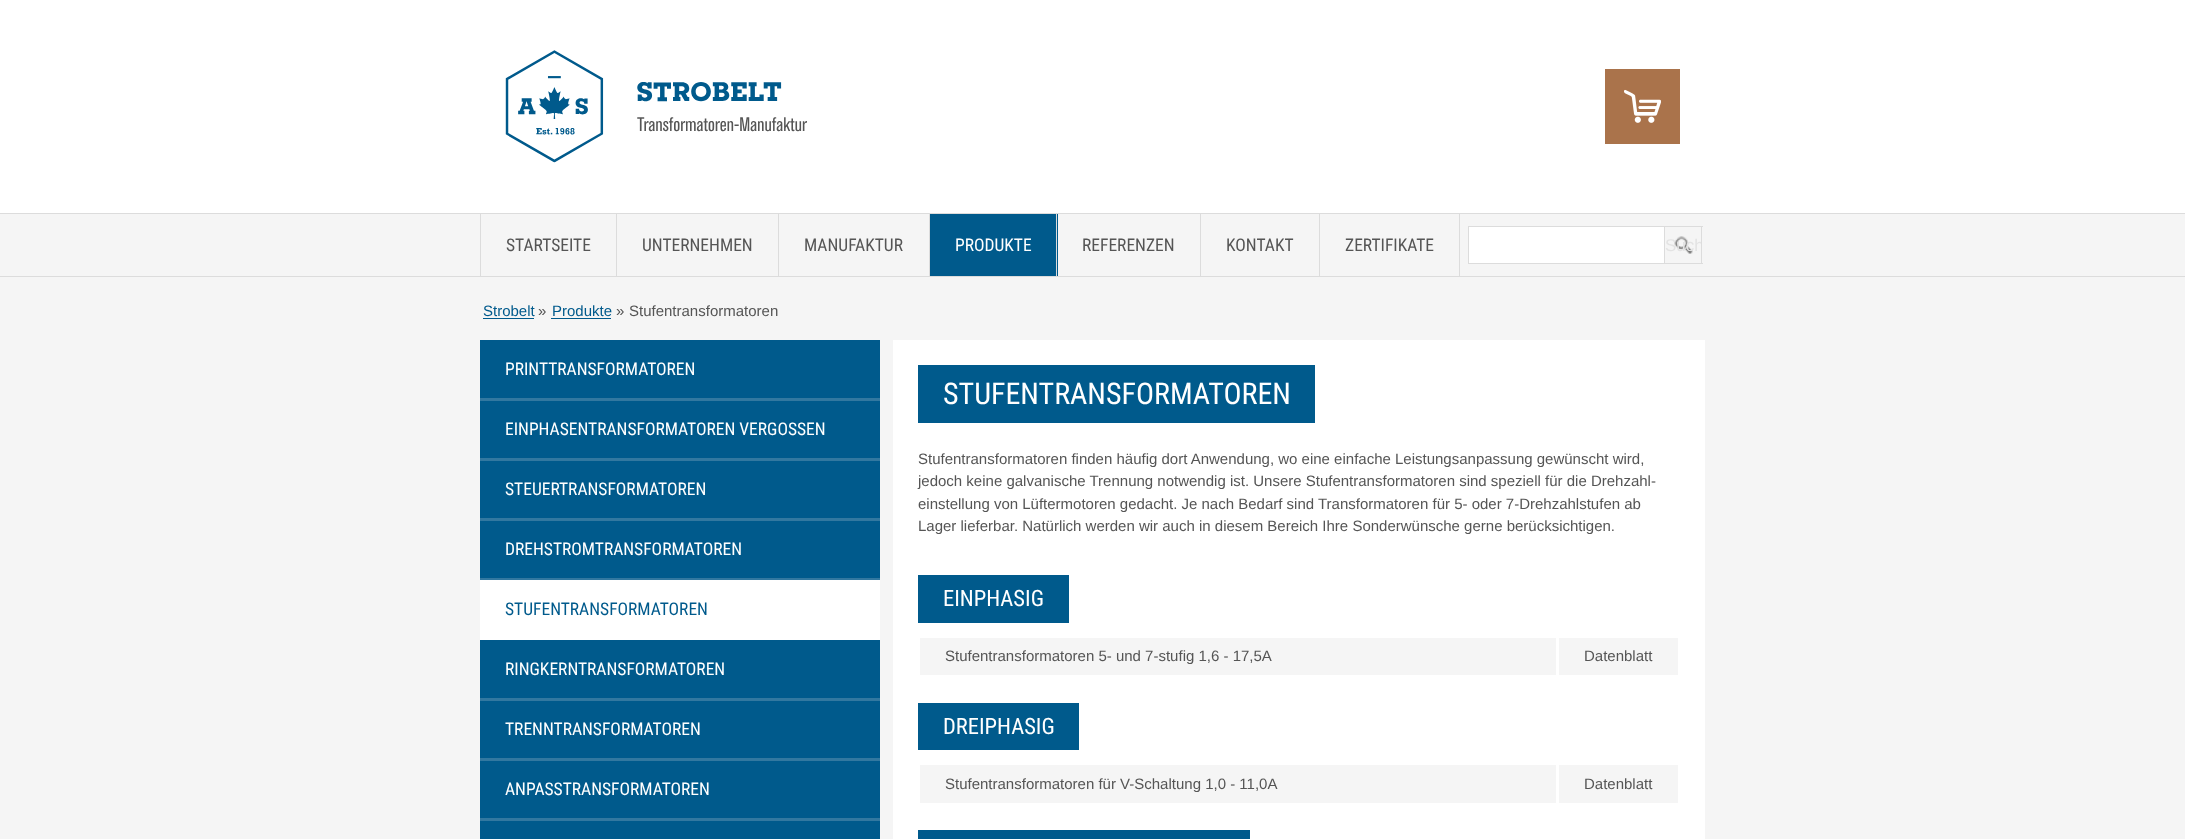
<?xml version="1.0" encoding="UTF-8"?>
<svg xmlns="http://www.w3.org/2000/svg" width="2185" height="839">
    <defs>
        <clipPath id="clip1"><rect x="1665" y="228" width="36" height="35"/></clipPath>
    </defs>
    <rect width="100%" height="100%" fill="#F5F5F5"/>
    <rect x="0" y="0" width="2185" height="213" fill="#FFFFFF"/>
    <image x="505" y="50" width="302" height="113" href="img_01.png"/>
    <rect x="1605" y="69" width="75" height="75" fill="#AA734B"/>
    <image x="1624" y="89" width="37" height="34" href="img_02.png"/>
    <rect x="0" y="213" width="2185" height="1" fill="#DCDCDC"/>
    <rect x="0" y="276" width="2185" height="1" fill="#DCDCDC"/>
    <rect x="616" y="214" width="1" height="62" fill="#DCDCDC"/>
    <rect x="480" y="214" width="1" height="62" fill="#DCDCDC"/>
    <text x="506" y="251" font-family="Roboto Condensed" font-size="17.5" fill="#555555">STARTSEITE</text>
    <rect x="778" y="214" width="1" height="62" fill="#DCDCDC"/>
    <text x="642" y="251" font-family="Roboto Condensed" font-size="17.5" fill="#555555">UNTERNEHMEN</text>
    <rect x="929" y="214" width="1" height="62" fill="#DCDCDC"/>
    <text x="804" y="251" font-family="Roboto Condensed" font-size="17.5" fill="#555555">MANUFAKTUR</text>
    <rect x="930" y="214" width="128" height="62" fill="#005A8C"/>
    <rect x="1056" y="214" width="1" height="62" fill="#DCDCDC"/>
    <text x="955" y="251" font-family="Roboto Condensed" font-size="17.5" fill="#FFFFFF">PRODUKTE</text>
    <rect x="1200" y="214" width="1" height="62" fill="#DCDCDC"/>
    <text x="1082" y="251" font-family="Roboto Condensed" font-size="17.5" fill="#555555">REFERENZEN</text>
    <rect x="1319" y="214" width="1" height="62" fill="#DCDCDC"/>
    <text x="1226" y="251" font-family="Roboto Condensed" font-size="17.5" fill="#555555">KONTAKT</text>
    <rect x="1459" y="214" width="1" height="62" fill="#DCDCDC"/>
    <text x="1345" y="251" font-family="Roboto Condensed" font-size="17.5" fill="#555555">ZERTIFIKATE</text>
    <rect x="1468.5" y="226.5" width="196" height="37" fill="#FFFFFF" stroke="#DCDCDC"/>
    <image x="1674" y="236" width="19" height="18" href="img_03.png"/>
    <rect x="1665" y="226" width="38" height="1" fill="#DCDCDC"/>
    <rect x="1701" y="226" width="1" height="38" fill="#DCDCDC"/>
    <rect x="1665" y="263" width="38" height="1" fill="#DCDCDC"/>
    <g clip-path="url(#clip1)">
        <text x="1665" y="251" font-family="Liberation Sans" font-size="17" fill="#E3E3E3">Such</text>
    </g>
    <text x="483" y="316" font-family="Liberation Sans" font-size="15" fill="#005A8C">Strobelt</text>
    <rect x="483" y="318" width="51" height="1" fill="#005A8C"/>
    <text x="538" y="316" font-family="Liberation Sans" font-size="15" fill="#555555">»</text>
    <text x="552" y="316" font-family="Liberation Sans" font-size="15" fill="#005A8C">Produkte</text>
    <rect x="551" y="318" width="60" height="1" fill="#005A8C"/>
    <text x="616" y="316" font-family="Liberation Sans" font-size="15" fill="#555555">»</text>
    <text x="629" y="316" font-family="Liberation Sans" font-size="15" fill="#555555">Stufentransformatoren</text>
    <rect x="480" y="340" width="400" height="499" fill="#005A8C"/>
    <rect x="480" y="398" width="400" height="3" fill="#3278A0"/>
    <text x="505" y="375" font-family="Roboto Condensed" font-size="17.5" fill="#FFFFFF">PRINTTRANSFORMATOREN</text>
    <rect x="480" y="458" width="400" height="3" fill="#3278A0"/>
    <text x="505" y="435" font-family="Roboto Condensed" font-size="17.5" fill="#FFFFFF">EINPHASENTRANSFORMATOREN VERGOSSEN</text>
    <rect x="480" y="518" width="400" height="3" fill="#3278A0"/>
    <text x="505" y="495" font-family="Roboto Condensed" font-size="17.5" fill="#FFFFFF">STEUERTRANSFORMATOREN</text>
    <rect x="480" y="578" width="400" height="2" fill="#3278A0"/>
    <text x="505" y="555" font-family="Roboto Condensed" font-size="17.5" fill="#FFFFFF">DREHSTROMTRANSFORMATOREN</text>
    <rect x="480" y="580" width="400" height="60" fill="#FFFFFF"/>
    <text x="505" y="615" font-family="Roboto Condensed" font-size="17.5" fill="#005A8C">STUFENTRANSFORMATOREN</text>
    <rect x="480" y="698" width="400" height="3" fill="#3278A0"/>
    <text x="505" y="675" font-family="Roboto Condensed" font-size="17.5" fill="#FFFFFF">RINGKERNTRANSFORMATOREN</text>
    <rect x="480" y="758" width="400" height="3" fill="#3278A0"/>
    <text x="505" y="735" font-family="Roboto Condensed" font-size="17.5" fill="#FFFFFF">TRENNTRANSFORMATOREN</text>
    <rect x="480" y="818" width="400" height="3" fill="#3278A0"/>
    <text x="505" y="795" font-family="Roboto Condensed" font-size="17.5" fill="#FFFFFF">ANPASSTRANSFORMATOREN</text>
    <rect x="893" y="340" width="812" height="499" fill="#FFFFFF"/>
    <rect x="918" y="365" width="397" height="58" fill="#005A8C"/>
    <text x="943" y="404" font-family="Roboto Condensed" font-size="30" fill="#FFFFFF">STUFENTRANSFORMATOREN</text>
    <text font-family="Liberation Sans" font-size="15" fill="#555555">
        <tspan x="918" y="464">Stufentransformatoren finden häufig dort Anwendung, wo eine einfache Leistungsanpassung gewünscht wird,</tspan>
        <tspan x="918" y="486">jedoch keine galvanische Trennung notwendig ist. Unsere Stufentransformatoren sind speziell für die Drehzahl-</tspan>
        <tspan x="918" y="509">einstellung von Lüftermotoren gedacht. Je nach Bedarf sind Transformatoren für 5- oder 7-Drehzahlstufen ab</tspan>
        <tspan x="918" y="531">Lager lieferbar. Natürlich werden wir auch in diesem Bereich Ihre Sonderwünsche gerne berücksichtigen.</tspan>
    </text>
    <rect x="918" y="575" width="151" height="48" fill="#005A8C"/>
    <text x="943" y="606" font-family="Roboto Condensed" font-size="22.5" fill="#FFFFFF">EINPHASIG</text>
    <rect x="920" y="638" width="636" height="37" fill="#F5F5F5"/>
    <text x="945" y="661" font-family="Liberation Sans" font-size="15" fill="#555555">Stufentransformatoren 5- und 7-stufig 1,6 - 17,5A</text>
    <rect x="1559" y="638" width="119" height="37" fill="#F5F5F5"/>
    <text x="1584" y="661" font-family="Liberation Sans" font-size="15" fill="#555555">Datenblatt</text>
    <rect x="918" y="703" width="161" height="47" fill="#005A8C"/>
    <text x="943" y="734" font-family="Roboto Condensed" font-size="22.5" fill="#FFFFFF">DREIPHASIG</text>
    <rect x="920" y="765" width="636" height="38" fill="#F5F5F5"/>
    <text x="945" y="789" font-family="Liberation Sans" font-size="15" fill="#555555">Stufentransformatoren für V-Schaltung 1,0 - 11,0A</text>
    <rect x="1559" y="765" width="119" height="38" fill="#F5F5F5"/>
    <text x="1584" y="789" font-family="Liberation Sans" font-size="15" fill="#555555">Datenblatt</text>
    <rect x="918" y="830" width="332" height="9" fill="#005A8C"/>
</svg>
